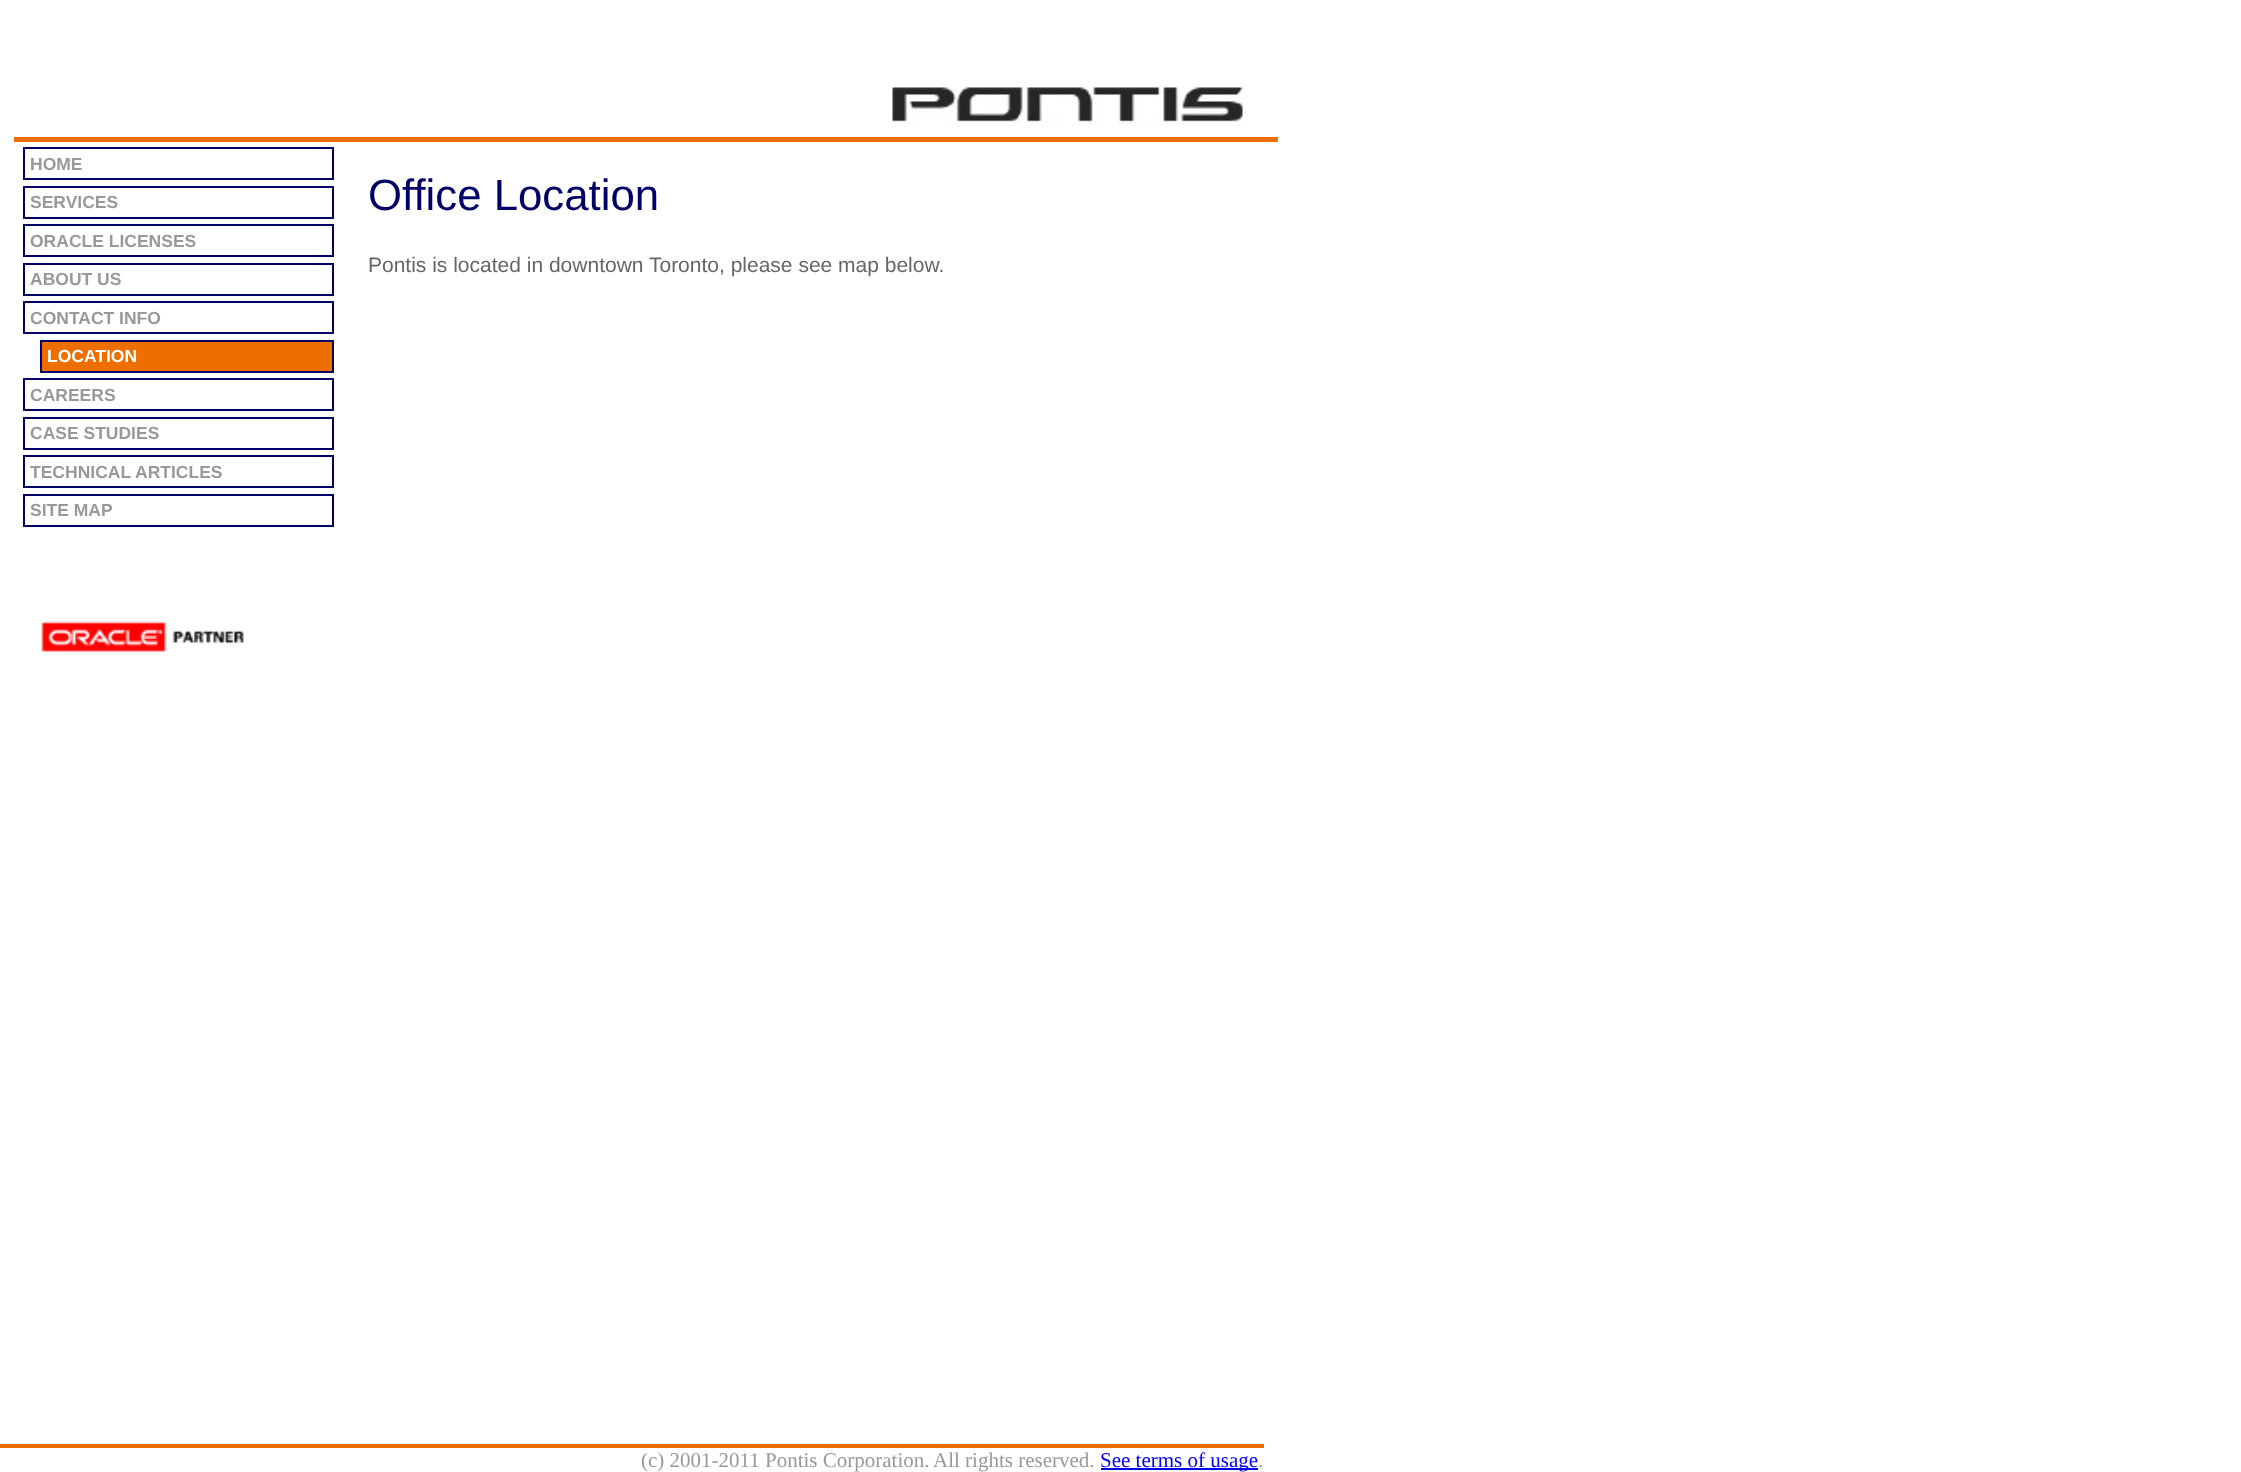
<?xml version="1.0" encoding="UTF-8"?>
<svg xmlns="http://www.w3.org/2000/svg" width="2241" height="1472">
    <rect width="100%" height="100%" fill="#FFFFFF"/>
    <rect x="14" y="137" width="1264" height="5" fill="#EE6E00"/>
    <image x="892" y="87" width="351" height="40" href="img_01.png"/>
    <rect x="24" y="148" width="309" height="31" fill="none" stroke="#000066" stroke-width="2"/>
    <text x="30" y="170" font-family="Liberation Sans" font-size="17.5" font-weight="700" fill="#999999">HOME</text>
    <rect x="24" y="187" width="309" height="31" fill="none" stroke="#000066" stroke-width="2"/>
    <text x="30" y="208" font-family="Liberation Sans" font-size="17.5" font-weight="700" fill="#999999">SERVICES</text>
    <rect x="24" y="225" width="309" height="31" fill="none" stroke="#000066" stroke-width="2"/>
    <text x="30" y="247" font-family="Liberation Sans" font-size="17.5" font-weight="700" fill="#999999">ORACLE LICENSES</text>
    <rect x="24" y="264" width="309" height="31" fill="none" stroke="#000066" stroke-width="2"/>
    <text x="30" y="285" font-family="Liberation Sans" font-size="17.5" font-weight="700" fill="#999999">ABOUT US</text>
    <rect x="24" y="302" width="309" height="31" fill="none" stroke="#000066" stroke-width="2"/>
    <text x="30" y="324" font-family="Liberation Sans" font-size="17.5" font-weight="700" fill="#999999">CONTACT INFO</text>
    <rect x="41" y="341" width="292" height="31" fill="#EE6E00" stroke="#000066" stroke-width="2"/>
    <text x="47" y="362" font-family="Liberation Sans" font-size="17.5" font-weight="700" fill="#FFFFFF">LOCATION</text>
    <rect x="24" y="379" width="309" height="31" fill="none" stroke="#000066" stroke-width="2"/>
    <text x="30" y="401" font-family="Liberation Sans" font-size="17.5" font-weight="700" fill="#999999">CAREERS</text>
    <rect x="24" y="418" width="309" height="31" fill="none" stroke="#000066" stroke-width="2"/>
    <text x="30" y="439" font-family="Liberation Sans" font-size="17.5" font-weight="700" fill="#999999">CASE STUDIES</text>
    <rect x="24" y="456" width="309" height="31" fill="none" stroke="#000066" stroke-width="2"/>
    <text x="30" y="478" font-family="Liberation Sans" font-size="17.5" font-weight="700" fill="#999999">TECHNICAL ARTICLES</text>
    <rect x="24" y="495" width="309" height="31" fill="none" stroke="#000066" stroke-width="2"/>
    <text x="30" y="516" font-family="Liberation Sans" font-size="17.5" font-weight="700" fill="#999999">SITE MAP</text>
    <text x="368" y="210" font-family="Liberation Sans" font-size="43.75" fill="#000066">Office Location</text>
    <text x="368" y="272" font-family="Liberation Sans" font-size="21" fill="#666666">Pontis is located in downtown Toronto, please see map below.</text>
    <image x="41" y="621" width="203" height="32" href="img_02.png"/>
    <rect x="0" y="1444" width="1264" height="4" fill="#EE6E00"/>
    <text x="641" y="1467" font-family="Liberation Serif" font-size="21" fill="#999999">(c) 2001-2011 Pontis Corporation.</text>
    <text x="933" y="1467" font-family="Liberation Serif" font-size="21" fill="#999999">All rights reserved.</text>
    <rect x="1101" y="1468" width="157" height="2" fill="#0000EE"/>
    <text x="1100" y="1467" font-family="Liberation Serif" font-size="21" fill="#0000EE">See terms of usage</text>
    <text x="1258" y="1467" font-family="Liberation Serif" font-size="21" fill="#999999">.</text>
</svg>
